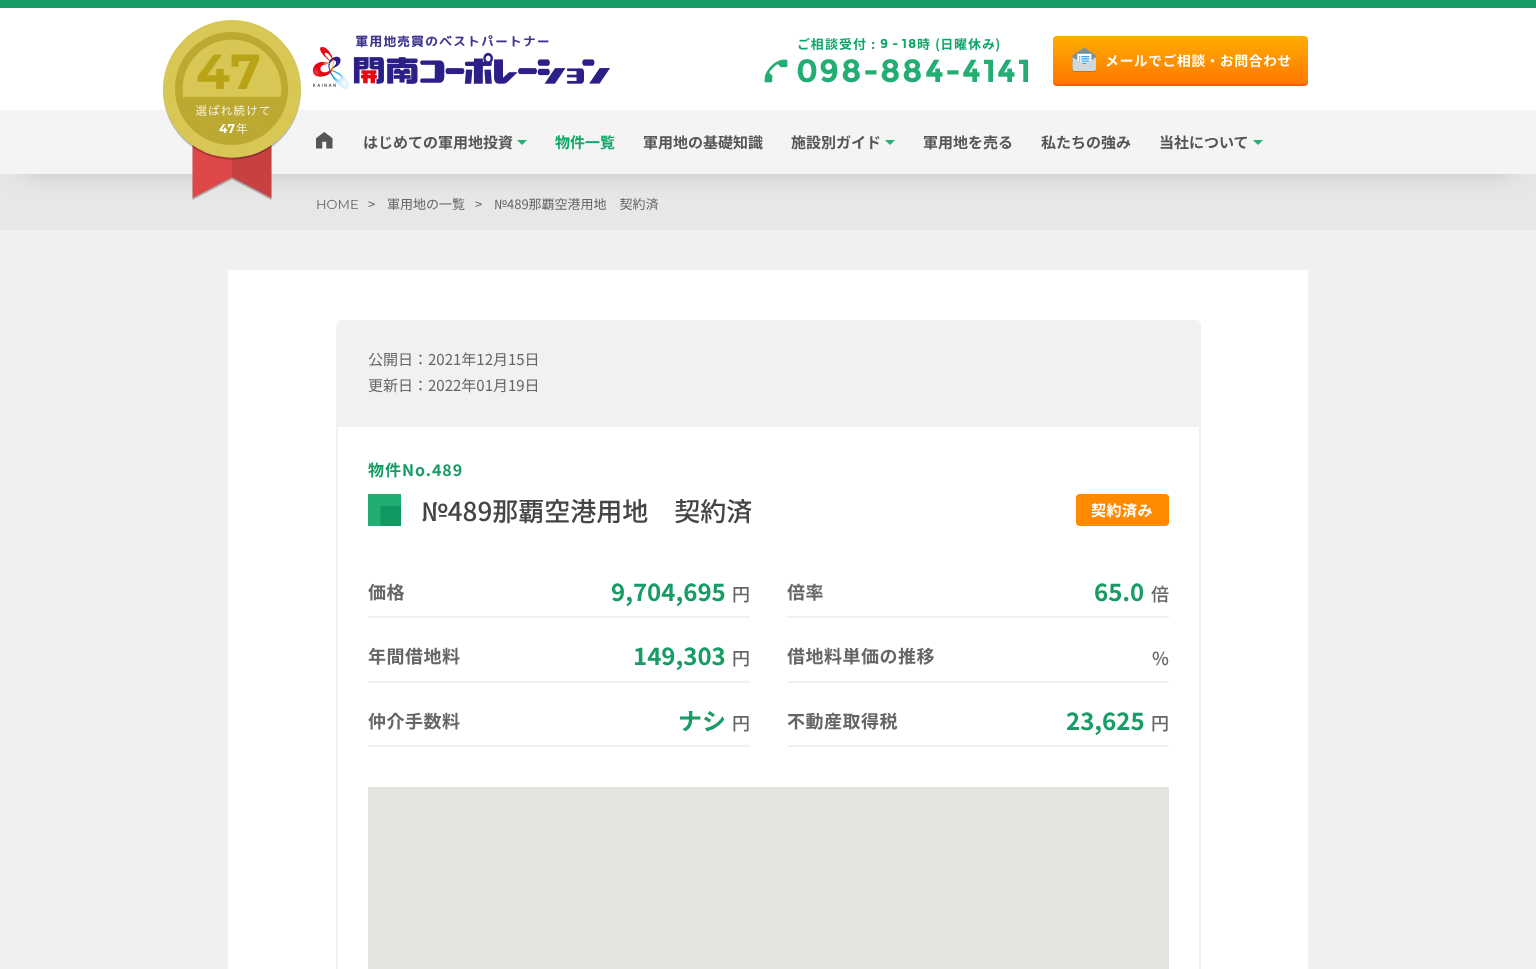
<?xml version="1.0" encoding="UTF-8"?>
<svg xmlns="http://www.w3.org/2000/svg" width="1536" height="969">
    <defs>
        <filter id="blur1" x="-50%" y="-200%" width="200%" height="500%"><feGaussianBlur stdDeviation="11.5"/></filter>
    </defs>
    <rect width="100%" height="100%" fill="#F0F0F0"/>
    <rect x="0" y="174" width="1536" height="56" fill="#E7E7E7"/>
    <rect x="23" y="46" width="1490" height="128" fill="#000000" fill-opacity="0.15" filter="url(#blur1)"/>
    <rect x="0" y="8" width="1536" height="102" fill="#FFFFFF"/>
    <rect x="0" y="0" width="1536" height="8" fill="#179C65"/>
    <rect x="0" y="110" width="1536" height="64" fill="#F4F4F4"/>
    <image x="163" y="20" width="138" height="180" href="img_01.png"/>
    <image x="312" y="35" width="298" height="54" href="img_02.png"/>
    <image x="764" y="37" width="264" height="46" href="img_03.png"/>
    <image x="1053" y="36" width="255" height="50" href="img_04.png"/>
    <image x="316" y="132" width="17" height="17" href="img_05.png"/>
    <text x="363" y="148" font-family="Noto Sans JP" font-size="15" font-weight="700" fill="#555555">はじめての軍用地投資</text>
    <path d="M 517 140 H 527 L 522 145 Z" fill="#22AE73"/>
    <text x="555" y="148" font-family="Noto Sans JP" font-size="15" font-weight="700" fill="#0EA768">物件一覧</text>
    <text x="643" y="148" font-family="Noto Sans JP" font-size="15" font-weight="700" fill="#555555">軍用地の基礎知識</text>
    <text x="791" y="148" font-family="Noto Sans JP" font-size="15" font-weight="700" fill="#555555">施設別ガイド</text>
    <path d="M 885 140 H 895 L 890 145 Z" fill="#22AE73"/>
    <text x="923" y="148" font-family="Noto Sans JP" font-size="15" font-weight="700" fill="#555555">軍用地を売る</text>
    <text x="1041" y="148" font-family="Noto Sans JP" font-size="15" font-weight="700" fill="#555555">私たちの強み</text>
    <text x="1159" y="148" font-family="Noto Sans JP" font-size="15" font-weight="700" fill="#555555">当社について</text>
    <path d="M 1253 140 H 1263 L 1258 145 Z" fill="#22AE73"/>
    <text x="316" y="209" font-family="Montserrat" font-size="13" fill="#666666">HOME</text>
    <text x="368" y="209" font-family="Noto Sans JP" font-size="13" fill="#666666">&gt;</text>
    <text x="387" y="209" font-family="Noto Sans JP" font-size="13" fill="#666666">軍用地の一覧</text>
    <text x="475" y="209" font-family="Noto Sans JP" font-size="13" fill="#666666">&gt;</text>
    <text x="494" y="209" font-family="Noto Sans JP" font-size="13" fill="#666666">№489那覇空港用地　契約済</text>
    <rect x="228" y="270" width="1080" height="699" fill="#FFFFFF"/>
    <rect x="337" y="321" width="863" height="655" rx="5" fill="none" stroke="#F1F1F1" stroke-width="2"/>
    <path d="M 342 322 H 1195 C 1197 322 1199 324 1199 326 V 427 H 338 V 326 C 338 324 340 322 342 322 Z" fill="#F1F1F1"/>
    <text font-family="Noto Sans JP" font-size="15" fill="#666666">
        <tspan x="368" y="365">公開日：2021年12月15日</tspan>
        <tspan x="368" y="391">更新日：2022年01月19日</tspan>
    </text>
    <text x="368" y="476" font-family="Noto Sans JP" font-size="16" font-weight="700" letter-spacing="1" fill="#179C65">物件No.489</text>
    <image x="368" y="494" width="33" height="32" href="img_06.png"/>
    <text x="421" y="521" font-family="Noto Sans JP" font-size="26" font-weight="500" fill="#454545">№489那覇空港用地　契約済</text>
    <rect x="1076" y="494" width="93" height="32" rx="4" fill="#FF8A00"/>
    <text x="1091" y="516" font-family="Noto Sans JP" font-size="15" font-weight="700" letter-spacing="0.5" fill="#FFFFFF">契約済み</text>
    <rect x="368" y="616" width="382" height="2" fill="#F1F1F1"/>
    <text x="368" y="599" font-family="Noto Sans JP" font-size="18" font-weight="700" letter-spacing="0.5" fill="#666666">価格</text>
    <text x="611" y="601" font-family="Noto Sans JP" font-size="24" font-weight="700" fill="#179C65">9,704,695</text>
    <text x="732" y="601" font-family="Noto Sans JP" font-size="18" font-weight="500" fill="#666666">円</text>
    <rect x="787" y="616" width="382" height="2" fill="#F1F1F1"/>
    <text x="787" y="599" font-family="Noto Sans JP" font-size="18" font-weight="700" letter-spacing="0.5" fill="#666666">倍率</text>
    <text x="1094" y="601" font-family="Noto Sans JP" font-size="24" font-weight="700" fill="#179C65">65.0</text>
    <text x="1151" y="601" font-family="Noto Sans JP" font-size="18" font-weight="500" fill="#666666">倍</text>
    <rect x="368" y="681" width="382" height="2" fill="#F1F1F1"/>
    <text x="368" y="663" font-family="Noto Sans JP" font-size="18" font-weight="700" letter-spacing="0.5" fill="#666666">年間借地料</text>
    <text x="633" y="665" font-family="Noto Sans JP" font-size="24" font-weight="700" fill="#179C65">149,303</text>
    <text x="732" y="665" font-family="Noto Sans JP" font-size="18" font-weight="500" fill="#666666">円</text>
    <rect x="787" y="681" width="382" height="2" fill="#F1F1F1"/>
    <text x="787" y="663" font-family="Noto Sans JP" font-size="18" font-weight="700" letter-spacing="0.5" fill="#666666">借地料単価の推移</text>
    <text x="1152" y="665" font-family="Noto Sans JP" font-size="18" font-weight="500" fill="#666666">%</text>
    <rect x="368" y="745" width="382" height="2" fill="#F1F1F1"/>
    <text x="368" y="728" font-family="Noto Sans JP" font-size="18" font-weight="700" letter-spacing="0.5" fill="#666666">仲介手数料</text>
    <text x="678" y="730" font-family="Noto Sans JP" font-size="24" font-weight="700" fill="#179C65">ナシ</text>
    <text x="732" y="730" font-family="Noto Sans JP" font-size="18" font-weight="500" fill="#666666">円</text>
    <rect x="787" y="745" width="382" height="2" fill="#F1F1F1"/>
    <text x="787" y="728" font-family="Noto Sans JP" font-size="18" font-weight="700" letter-spacing="0.5" fill="#666666">不動産取得税</text>
    <text x="1066" y="730" font-family="Noto Sans JP" font-size="24" font-weight="700" fill="#179C65">23,625</text>
    <text x="1151" y="730" font-family="Noto Sans JP" font-size="18" font-weight="500" fill="#666666">円</text>
    <rect x="368" y="787" width="801" height="182" fill="#E5E3DF"/>
</svg>
